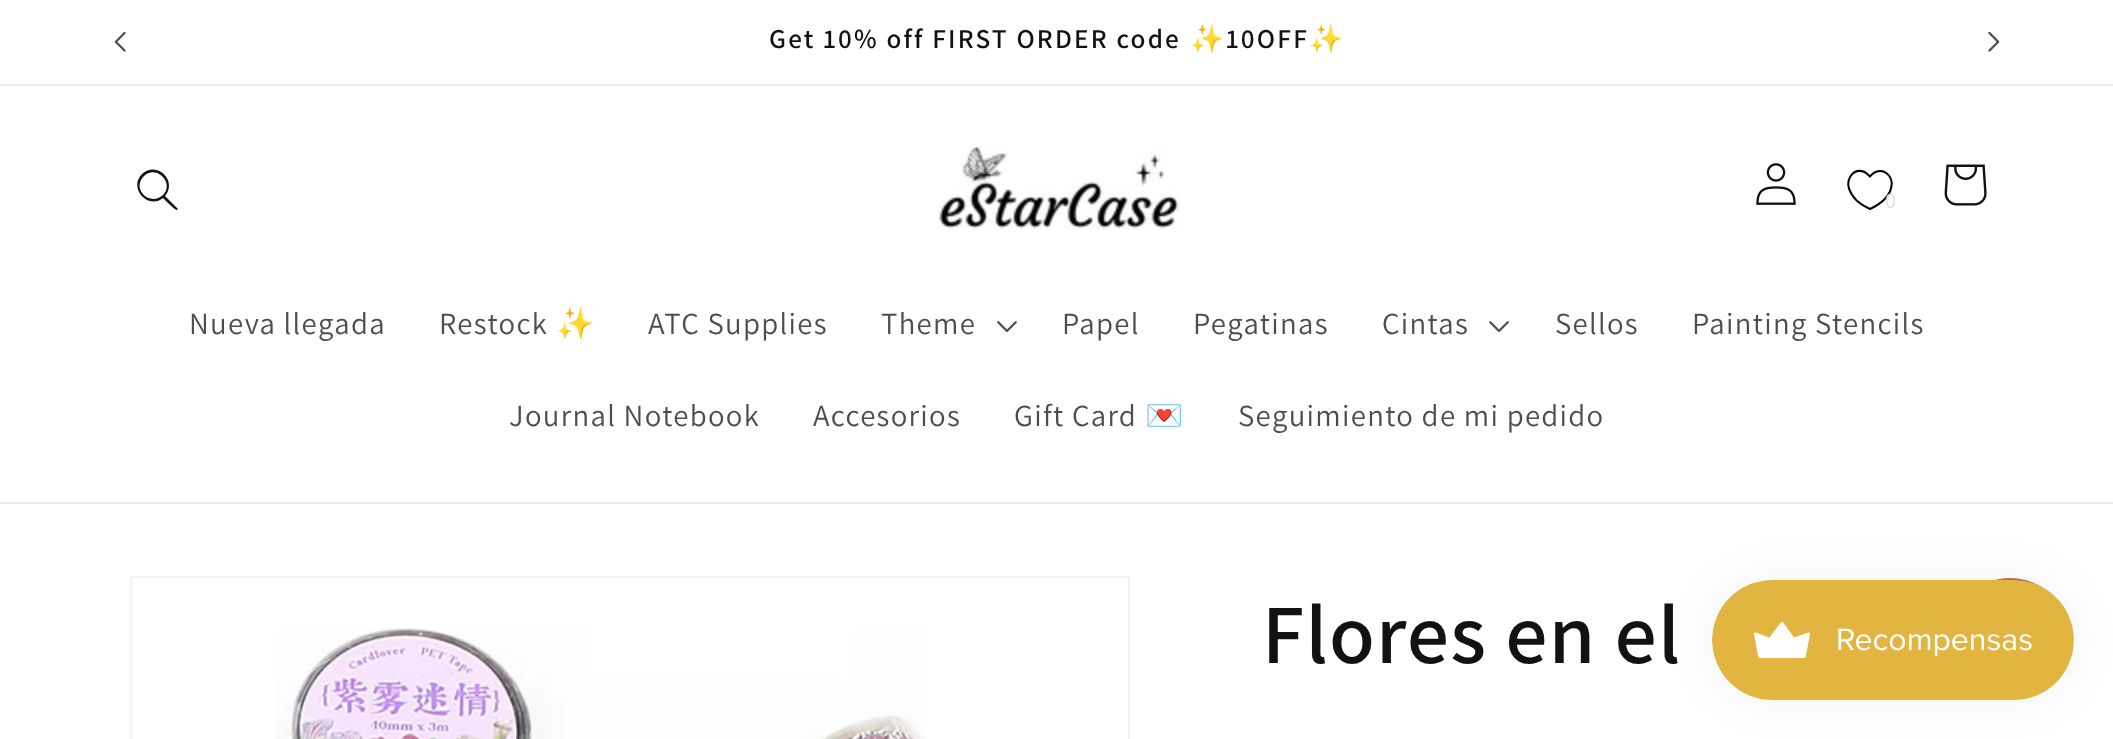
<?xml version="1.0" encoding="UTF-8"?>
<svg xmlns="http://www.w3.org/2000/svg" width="2113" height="739">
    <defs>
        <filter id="blur1" x="-50%" y="-200%" width="200%" height="500%"><feGaussianBlur stdDeviation="25"/></filter>
    </defs>
    <rect width="100%" height="100%" fill="#FFFFFF"/>
    <rect x="0" y="84" width="2113" height="2" fill="#ECECEC"/>
    <image x="114" y="31" width="12" height="21" href="img_01.png"/>
    <text x="769" y="48" font-family="Assistant" font-size="27.25" font-weight="600" letter-spacing="2.2" fill="#121212">Get 10% off FIRST ORDER code</text>
    <text x="1190" y="48" font-family="Noto Color Emoji" font-size="27.25" font-weight="700" letter-spacing="2.2" fill="#121212">✨</text>
    <text x="1226" y="48" font-family="Assistant" font-size="27.25" font-weight="600" letter-spacing="2.2" fill="#121212">10OFF</text>
    <text x="1309" y="48" font-family="Noto Color Emoji" font-size="27.25" font-weight="700" letter-spacing="2.2" fill="#121212">✨</text>
    <image x="1988" y="31" width="12" height="21" href="img_02.png"/>
    <rect x="0" y="502" width="2113" height="2" fill="#ECECEC"/>
    <path d="M 163 195 C 150 207 131 189 144 176 C 156 164 175 183 163 195 Z M 163 198 C 148 210 128 188 142 174 C 157 160 178 181 165 196 L 178 209 L 177 210 C 176 211 165 200 163 198 Z" fill="#121212" fill-rule="evenodd"/>
    <image x="936" y="146" width="244" height="84" href="img_03.png"/>
    <image x="1756" y="163" width="40" height="42" href="img_04.png"/>
    <path d="M 1870 209 C 1861 205 1852 198 1849 188.5 C 1846 178.5 1853.5 167.5 1864.5 172 C 1866.5 173 1868 174.5 1870 176.5 C 1871.5 174.5 1873.5 173 1875.5 172 C 1885 168 1893 177 1891.5 186 C 1890 197 1879.5 204.5 1870 209 Z" fill="none" stroke="#000000" stroke-width="2"/>
    <text x="1885" y="208" font-family="Assistant" font-size="22" letter-spacing="1.3" fill="#E0E0E0">0</text>
    <image x="1944" y="164" width="43" height="42" href="img_05.png"/>
    <text x="189" y="334" font-family="Assistant" font-size="30.75" letter-spacing="1.3" fill="#4D4D4D">Nueva llegada</text>
    <text x="439" y="334" font-family="Assistant" font-size="30.75" letter-spacing="1.3" fill="#4D4D4D">Restock</text>
    <text x="556" y="334" font-family="Noto Color Emoji" font-size="30.75" letter-spacing="1.3" fill="#4D4D4D">✨</text>
    <text x="648" y="334" font-family="Assistant" font-size="30.75" letter-spacing="1.3" fill="#4D4D4D">ATC Supplies</text>
    <text x="881" y="334" font-family="Assistant" font-size="30.75" letter-spacing="1.3" fill="#4D4D4D">Theme</text>
    <image x="997" y="321" width="20" height="11" href="img_06.png"/>
    <text x="1062" y="334" font-family="Assistant" font-size="30.75" letter-spacing="1.3" fill="#4D4D4D">Papel</text>
    <text x="1193" y="334" font-family="Assistant" font-size="30.75" letter-spacing="1.3" fill="#4D4D4D">Pegatinas</text>
    <text x="1382" y="334" font-family="Assistant" font-size="30.75" letter-spacing="1.3" fill="#4D4D4D">Cintas</text>
    <image x="1489" y="321" width="20" height="11" href="img_06.png"/>
    <text x="1555" y="334" font-family="Assistant" font-size="30.75" letter-spacing="1.3" fill="#4D4D4D">Sellos</text>
    <text x="1692" y="334" font-family="Assistant" font-size="30.75" letter-spacing="1.3" fill="#4D4D4D">Painting Stencils</text>
    <text x="509" y="426" font-family="Assistant" font-size="30.75" letter-spacing="1.3" fill="#4D4D4D">Journal Notebook</text>
    <text x="813" y="426" font-family="Assistant" font-size="30.75" letter-spacing="1.3" fill="#4D4D4D">Accesorios</text>
    <text x="1014" y="426" font-family="Assistant" font-size="30.75" letter-spacing="1.3" fill="#4D4D4D">Gift Card</text>
    <text x="1145" y="426" font-family="Noto Color Emoji" font-size="30.75" letter-spacing="1.3" fill="#4D4D4D">💌</text>
    <text x="1238" y="426" font-family="Assistant" font-size="30.75" letter-spacing="1.3" fill="#4D4D4D">Seguimiento de mi pedido</text>
    <circle cx="2010" cy="638" r="60" fill="#BD7052"/>
    <rect x="1712" y="580" width="362" height="120" rx="60" fill="#000000" fill-opacity="0.05" filter="url(#blur1)"/>
    <image x="1712" y="580" width="362" height="120" href="img_07.png"/>
    <rect x="131" y="577" width="998" height="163" fill="none" stroke="#F3F3F3" stroke-width="2"/>
    <image x="275" y="628" width="651" height="111" href="img_08.png"/>
    <text x="1262" y="663" font-family="Assistant" font-size="84" font-weight="600" letter-spacing="1.25" fill="#121212">Flores en el</text>
</svg>
